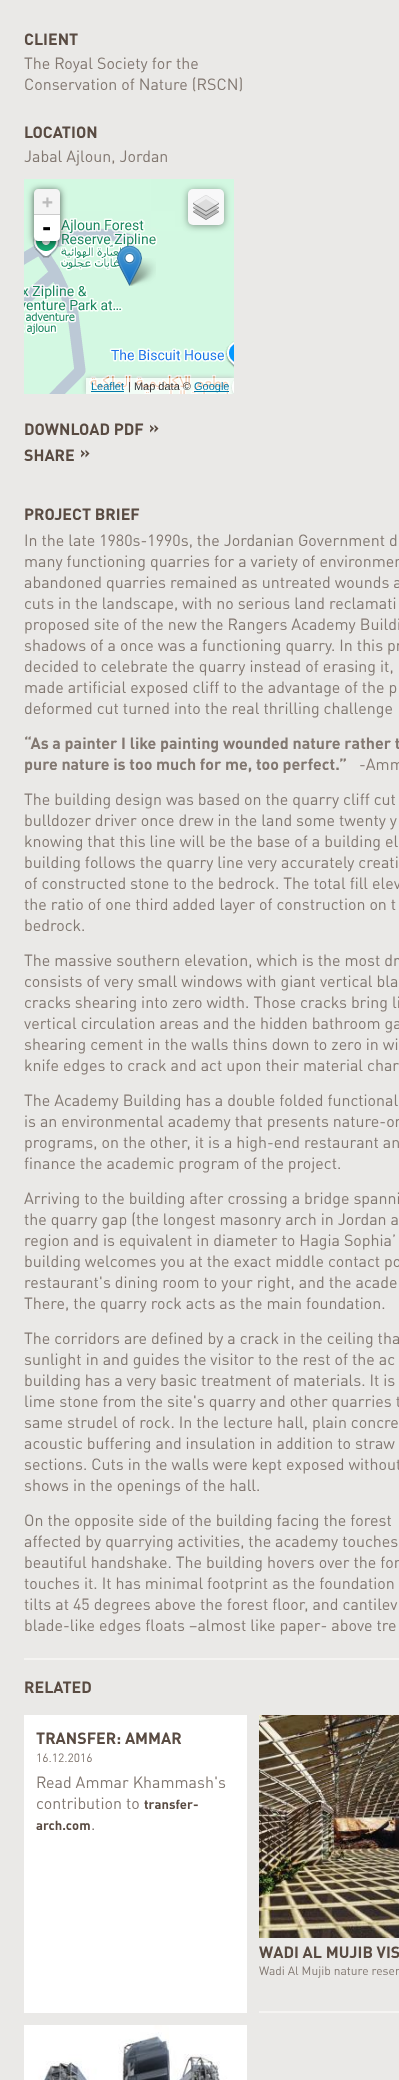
<?xml version="1.0" encoding="UTF-8"?>
<svg xmlns="http://www.w3.org/2000/svg" width="399" height="2080">
    <defs>
        <filter id="blur1" x="-50%" y="-200%" width="200%" height="500%"><feGaussianBlur stdDeviation="3.5"/></filter>
        <clipPath id="clip1"><rect x="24" y="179" width="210" height="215"/></clipPath>
        <clipPath id="clip2"><path d="M 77 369 H 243 V 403 H 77 Z M 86 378 H 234 V 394 H 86 Z" clip-rule="evenodd"/></clipPath>
        <filter id="blur2" x="-50%" y="-200%" width="200%" height="500%"><feGaussianBlur stdDeviation="2.5"/></filter>
    </defs>
    <rect width="100%" height="100%" fill="#EAE9E7"/>
    <text x="24" y="45" font-family="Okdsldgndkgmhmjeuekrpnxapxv" font-size="16" font-weight="700" fill="#594B42">CLIENT</text>
    <text font-family="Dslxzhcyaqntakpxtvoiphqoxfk" font-size="16" fill="#827871">
        <tspan x="24" y="69">The Royal Society for the</tspan>
        <tspan x="24" y="90">Conservation of Nature (RSCN)</tspan>
    </text>
    <text x="24" y="138" font-family="Okdsldgndkgmhmjeuekrpnxapxv" font-size="16" font-weight="700" fill="#594B42">LOCATION</text>
    <text x="24" y="162" font-family="Dslxzhcyaqntakpxtvoiphqoxfk" font-size="16" fill="#827871">Jabal Ajloun, Jordan</text>
    <rect x="24" y="179" width="127" height="32" fill="#D3F9E2"/>
    <rect x="151" y="179" width="83" height="32" fill="#D2F8E1"/>
    <image x="151" y="211" width="83" height="20" href="img_01.png"/>
    <image x="24" y="211" width="127" height="183" href="img_02.png"/>
    <image x="151" y="231" width="83" height="163" href="img_03.png"/>
    <image x="127" y="258" width="29" height="28" href="img_05.png"/>
    <image x="117" y="245" width="25" height="41" href="img_04.png"/>
    <rect x="34" y="190" width="26" height="52" rx="4" fill="#000000" fill-opacity="0.65" filter="url(#blur1)"/>
    <path d="M 38 189 H 56 C 58 189 60 191 60 193 V 215 H 34 V 193 C 34 191 36 189 38 189 Z" fill="#F4F4F4"/>
    <rect x="34" y="214" width="26" height="1" fill="#CCCCCC"/>
    <text x="42" y="208" font-family="DejaVu Sans Mono" font-size="18" font-weight="700" fill="#BBBBBB">+</text>
    <path d="M 34 215 H 60 V 237 C 60 239 58 241 56 241 H 38 C 36 241 34 239 34 237 Z" fill="#FFFFFF"/>
    <text x="40" y="235" font-family="DejaVu Sans Mono" font-size="22" font-weight="700" fill="#000000">-</text>
    <rect x="188" y="190" width="36" height="36" rx="5" fill="#000000" fill-opacity="0.4" filter="url(#blur1)"/>
    <rect x="188" y="189" width="36" height="36" rx="5" fill="#F8F8F9"/>
    <image x="193" y="195" width="26" height="25" href="img_06.png"/>
    <g clip-path="url(#clip1)">
        <g clip-path="url(#clip2)">
            <rect x="86" y="378" width="148" height="16" fill="#BBBBBB" filter="url(#blur2)"/>
        </g>
    </g>
    <rect x="86" y="378" width="148" height="16" fill="#FFFFFF" fill-opacity="0.7"/>
    <text x="91" y="390" font-family="Liberation Sans" font-size="11" fill="#0078A8">Leaflet</text>
    <rect x="91" y="391" width="33" height="1" fill="#0078A8"/>
    <text x="128" y="390" font-family="Liberation Sans" font-size="11" fill="#333333">| Map data ©</text>
    <rect x="194" y="391" width="35" height="1" fill="#0078A8"/>
    <text x="194" y="390" font-family="Liberation Sans" font-size="11" fill="#0078A8">Google</text>
    <text x="24" y="435" font-family="Okdsldgndkgmhmjeuekrpnxapxv" font-size="16" font-weight="700" fill="#594B42">DOWNLOAD PDF</text>
    <text x="149" y="433" font-family="Okdsldgndkgmhmjeuekrpnxapxv" font-size="16" font-weight="700" fill="#594B42">»</text>
    <text x="24" y="461" font-family="Okdsldgndkgmhmjeuekrpnxapxv" font-size="16" font-weight="700" fill="#594B42">SHARE</text>
    <text x="80" y="458" font-family="Okdsldgndkgmhmjeuekrpnxapxv" font-size="16" font-weight="700" fill="#594B42">»</text>
    <text x="24" y="520" font-family="Okdsldgndkgmhmjeuekrpnxapxv" font-size="16" font-weight="700" fill="#594B42">PROJECT BRIEF</text>
    <text font-family="Dslxzhcyaqntakpxtvoiphqoxfk" font-size="16" fill="#827871">
        <tspan x="24" y="546">In the late 1980s-1990s, the Jordanian Government d</tspan>
        <tspan x="24" y="567">many functioning quarries for a variety of environmen</tspan>
        <tspan x="24" y="588">abandoned quarries remained as untreated wounds a</tspan>
        <tspan x="24" y="609">cuts in the landscape, with no serious land reclamati</tspan>
        <tspan x="24" y="630">proposed site of the new the Rangers Academy Buildi</tspan>
        <tspan x="24" y="651">shadows of a once was a functioning quarry. In this pr</tspan>
        <tspan x="24" y="672">decided to celebrate the quarry instead of erasing it,</tspan>
        <tspan x="24" y="693">made artificial exposed cliff to the advantage of the p</tspan>
        <tspan x="24" y="714">deformed cut turned into the real thrilling challenge</tspan>
    </text>
    <text font-family="Okdsldgndkgmhmjeuekrpnxapxv" font-size="16" font-weight="700" fill="#827871">
        <tspan x="24" y="749">“As a painter I like painting wounded nature rather t</tspan>
        <tspan x="24" y="770">pure nature is too much for me, too perfect.”</tspan>
    </text>
    <text x="359" y="770" font-family="Dslxzhcyaqntakpxtvoiphqoxfk" font-size="16" fill="#827871">-Amm</text>
    <text font-family="Dslxzhcyaqntakpxtvoiphqoxfk" font-size="16" fill="#827871">
        <tspan x="24" y="805">The building design was based on the quarry cliff cut</tspan>
        <tspan x="24" y="826">bulldozer driver once drew in the land some twenty y</tspan>
        <tspan x="24" y="847">knowing that this line will be the base of a building el</tspan>
        <tspan x="24" y="868">building follows the quarry line very accurately creati</tspan>
        <tspan x="24" y="889">of constructed stone to the bedrock. The total fill elev</tspan>
        <tspan x="24" y="910">the ratio of one third added layer of construction on t</tspan>
        <tspan x="24" y="931">bedrock.</tspan>
    </text>
    <text font-family="Dslxzhcyaqntakpxtvoiphqoxfk" font-size="16" fill="#827871">
        <tspan x="24" y="966">The massive southern elevation, which is the most dr</tspan>
        <tspan x="24" y="987">consists of very small windows with giant vertical bla</tspan>
        <tspan x="24" y="1008">cracks shearing into zero width. Those cracks bring li</tspan>
        <tspan x="24" y="1029">vertical circulation areas and the hidden bathroom ga</tspan>
        <tspan x="24" y="1050">shearing cement in the walls thins down to zero in wi</tspan>
        <tspan x="24" y="1071">knife edges to crack and act upon their material char</tspan>
    </text>
    <text font-family="Dslxzhcyaqntakpxtvoiphqoxfk" font-size="16" fill="#827871">
        <tspan x="24" y="1106">The Academy Building has a double folded functional</tspan>
        <tspan x="24" y="1127">is an environmental academy that presents nature-or</tspan>
        <tspan x="24" y="1148">programs, on the other, it is a high-end restaurant an</tspan>
        <tspan x="24" y="1169">finance the academic program of the project.</tspan>
    </text>
    <text font-family="Dslxzhcyaqntakpxtvoiphqoxfk" font-size="16" fill="#827871">
        <tspan x="24" y="1204">Arriving to the building after crossing a bridge spanni</tspan>
        <tspan x="24" y="1225">the quarry gap (the longest masonry arch in Jordan a</tspan>
        <tspan x="24" y="1246">region and is equivalent in diameter to Hagia Sophia’</tspan>
        <tspan x="24" y="1267">building welcomes you at the exact middle contact po</tspan>
        <tspan x="24" y="1288">restaurant's dining room to your right, and the acade</tspan>
        <tspan x="24" y="1309">There, the quarry rock acts as the main foundation.</tspan>
    </text>
    <text font-family="Dslxzhcyaqntakpxtvoiphqoxfk" font-size="16" fill="#827871">
        <tspan x="24" y="1344">The corridors are defined by a crack in the ceiling tha</tspan>
        <tspan x="24" y="1365">sunlight in and guides the visitor to the rest of the ac</tspan>
        <tspan x="24" y="1386">building has a very basic treatment of materials. It is</tspan>
        <tspan x="24" y="1407">lime stone from the site's quarry and other quarries t</tspan>
        <tspan x="24" y="1428">same strudel of rock. In the lecture hall, plain concre</tspan>
        <tspan x="24" y="1449">acoustic buffering and insulation in addition to straw</tspan>
        <tspan x="24" y="1470">sections. Cuts in the walls were kept exposed without</tspan>
        <tspan x="24" y="1491">shows in the openings of the hall.</tspan>
    </text>
    <text font-family="Dslxzhcyaqntakpxtvoiphqoxfk" font-size="16" fill="#827871">
        <tspan x="24" y="1526">On the opposite side of the building facing the forest</tspan>
        <tspan x="24" y="1547">affected by quarrying activities, the academy touches</tspan>
        <tspan x="24" y="1568">beautiful handshake. The building hovers over the for</tspan>
        <tspan x="24" y="1589">touches it. It has minimal footprint as the foundation</tspan>
        <tspan x="24" y="1610">tilts at 45 degrees above the forest floor, and cantilev</tspan>
        <tspan x="24" y="1631">blade-like edges floats –almost like paper- above tre</tspan>
    </text>
    <rect x="24" y="1658" width="375" height="2" fill="#F5F4F2"/>
    <text x="24" y="1693" font-family="Okdsldgndkgmhmjeuekrpnxapxv" font-size="16" font-weight="700" fill="#594B42">RELATED</text>
    <rect x="24" y="1715" width="223" height="298" fill="#FFFFFF"/>
    <text x="36" y="1744" font-family="Okdsldgndkgmhmjeuekrpnxapxv" font-size="16" font-weight="700" fill="#594B42">TRANSFER: AMMAR</text>
    <text x="36" y="1762" font-family="Dslxzhcyaqntakpxtvoiphqoxfk" font-size="12" fill="#827871">16.12.2016</text>
    <text font-family="Dslxzhcyaqntakpxtvoiphqoxfk" font-size="16" fill="#827871">
        <tspan x="36" y="1788">Read Ammar Khammash's</tspan>
        <tspan x="36" y="1809">contribution to</tspan>
    </text>
    <text x="144" y="1809" font-family="Okdsldgndkgmhmjeuekrpnxapxv" font-size="13" font-weight="700" fill="#594B42">transfer-</text>
    <text x="36" y="1830" font-family="Okdsldgndkgmhmjeuekrpnxapxv" font-size="13" font-weight="700" fill="#594B42">arch.com</text>
    <text x="91" y="1830" font-family="Dslxzhcyaqntakpxtvoiphqoxfk" font-size="16" fill="#827871">.</text>
    <rect x="259" y="2011" width="140" height="2" fill="#F5F4F2"/>
    <image x="259" y="1715" width="140" height="223" href="img_07.png"/>
    <text x="259" y="1958" font-family="Okdsldgndkgmhmjeuekrpnxapxv" font-size="16" font-weight="700" fill="#594B42">WADI AL MUJIB VIS</text>
    <text x="259" y="1975" font-family="Dslxzhcyaqntakpxtvoiphqoxfk" font-size="12" fill="#827871">Wadi Al Mujib nature reser</text>
    <image x="24" y="2025" width="223" height="55" href="img_08.png"/>
</svg>
